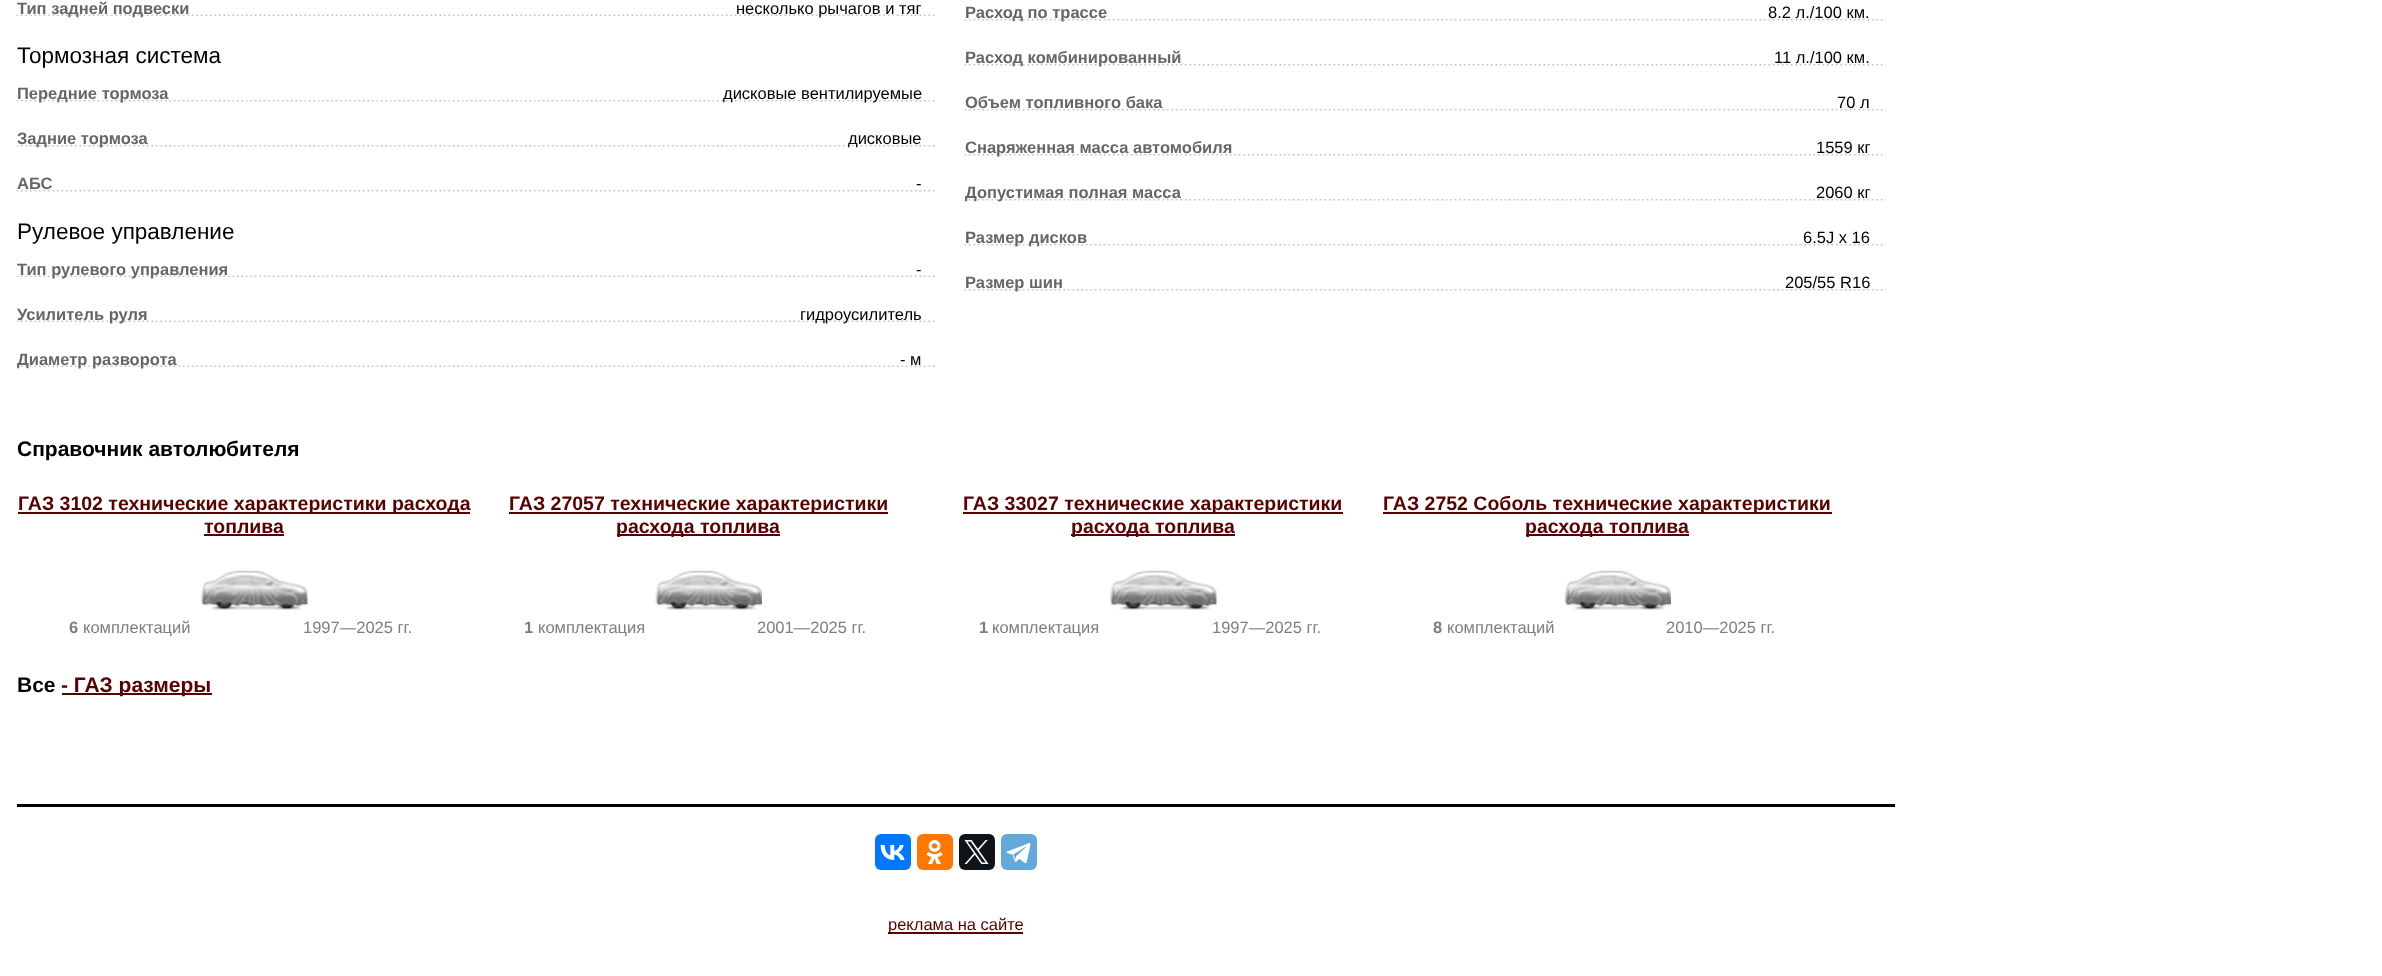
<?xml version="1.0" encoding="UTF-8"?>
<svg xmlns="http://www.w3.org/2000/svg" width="2382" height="976">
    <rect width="100%" height="100%" fill="#FFFFFF"/>
    <rect x="17" y="804" width="1878" height="3" fill="#000000"/>
    <image x="16" y="14" width="552" height="2" href="img_01.png"/>
    <text x="17" y="14" font-family="Liberation Sans" font-size="16.5" font-weight="700" fill="#666666">Тип задней подвески</text>
    <image x="568" y="14" width="367" height="2" href="img_02.png"/>
    <text x="736" y="14" font-family="Liberation Sans" font-size="16.5" fill="#000000">несколько рычагов и тяг</text>
    <text x="17" y="63" font-family="Liberation Sans" font-size="22.5" fill="#000000">Тормозная система</text>
    <image x="16" y="100" width="552" height="2" href="img_03.png"/>
    <text x="17" y="99" font-family="Liberation Sans" font-size="16.5" font-weight="700" fill="#666666">Передние тормоза</text>
    <image x="568" y="100" width="367" height="2" href="img_04.png"/>
    <text x="723" y="99" font-family="Liberation Sans" font-size="16.5" fill="#000000">дисковые вентилируемые</text>
    <image x="16" y="145" width="552" height="2" href="img_03.png"/>
    <text x="17" y="144" font-family="Liberation Sans" font-size="16.5" font-weight="700" fill="#666666">Задние тормоза</text>
    <image x="568" y="145" width="367" height="2" href="img_04.png"/>
    <text x="848" y="144" font-family="Liberation Sans" font-size="16.5" fill="#000000">дисковые</text>
    <image x="16" y="190" width="552" height="2" href="img_03.png"/>
    <text x="17" y="189" font-family="Liberation Sans" font-size="16.5" font-weight="700" fill="#666666">АБС</text>
    <image x="568" y="190" width="367" height="2" href="img_04.png"/>
    <text x="916" y="189" font-family="Liberation Sans" font-size="16.5" fill="#000000">-</text>
    <text x="17" y="239" font-family="Liberation Sans" font-size="22.5" fill="#000000">Рулевое управление</text>
    <image x="16" y="275" width="552" height="2" href="img_01.png"/>
    <text x="17" y="275" font-family="Liberation Sans" font-size="16.5" font-weight="700" fill="#666666">Тип рулевого управления</text>
    <image x="568" y="275" width="367" height="2" href="img_02.png"/>
    <text x="916" y="275" font-family="Liberation Sans" font-size="16.5" fill="#000000">-</text>
    <image x="16" y="320" width="552" height="2" href="img_01.png"/>
    <text x="17" y="320" font-family="Liberation Sans" font-size="16.5" font-weight="700" fill="#666666">Усилитель руля</text>
    <image x="568" y="320" width="367" height="2" href="img_02.png"/>
    <text x="800" y="320" font-family="Liberation Sans" font-size="16.5" fill="#000000">гидроусилитель</text>
    <image x="16" y="365" width="552" height="2" href="img_01.png"/>
    <text x="17" y="365" font-family="Liberation Sans" font-size="16.5" font-weight="700" fill="#666666">Диаметр разворота</text>
    <image x="568" y="365" width="367" height="2" href="img_02.png"/>
    <text x="900" y="365" font-family="Liberation Sans" font-size="16.5" fill="#000000">- м</text>
    <image x="964" y="19" width="552" height="2" href="img_05.png"/>
    <text x="965" y="18" font-family="Liberation Sans" font-size="16.5" font-weight="700" fill="#666666">Расход по трассе</text>
    <image x="1516" y="19" width="370" height="2" href="img_06.png"/>
    <text x="1768" y="18" font-family="Liberation Sans" font-size="16.5" fill="#000000">8.2 л./100 км.</text>
    <image x="964" y="64" width="552" height="2" href="img_05.png"/>
    <text x="965" y="63" font-family="Liberation Sans" font-size="16.5" font-weight="700" fill="#666666">Расход комбинированный</text>
    <image x="1516" y="64" width="370" height="2" href="img_06.png"/>
    <text x="1774" y="63" font-family="Liberation Sans" font-size="16.5" fill="#000000">11 л./100 км.</text>
    <image x="964" y="109" width="552" height="2" href="img_05.png"/>
    <text x="965" y="108" font-family="Liberation Sans" font-size="16.5" font-weight="700" fill="#666666">Объем топливного бака</text>
    <image x="1516" y="109" width="370" height="2" href="img_06.png"/>
    <text x="1837" y="108" font-family="Liberation Sans" font-size="16.5" fill="#000000">70 л</text>
    <image x="964" y="154" width="552" height="2" href="img_05.png"/>
    <text x="965" y="153" font-family="Liberation Sans" font-size="16.5" font-weight="700" fill="#666666">Снаряженная масса автомобиля</text>
    <image x="1516" y="154" width="370" height="2" href="img_06.png"/>
    <text x="1816" y="153" font-family="Liberation Sans" font-size="16.5" fill="#000000">1559 кг</text>
    <image x="964" y="199" width="552" height="2" href="img_05.png"/>
    <text x="965" y="198" font-family="Liberation Sans" font-size="16.5" font-weight="700" fill="#666666">Допустимая полная масса</text>
    <image x="1516" y="199" width="370" height="2" href="img_06.png"/>
    <text x="1816" y="198" font-family="Liberation Sans" font-size="16.5" fill="#000000">2060 кг</text>
    <image x="964" y="244" width="552" height="2" href="img_05.png"/>
    <text x="965" y="243" font-family="Liberation Sans" font-size="16.5" font-weight="700" fill="#666666">Размер дисков</text>
    <image x="1516" y="244" width="370" height="2" href="img_06.png"/>
    <text x="1803" y="243" font-family="Liberation Sans" font-size="16.5" fill="#000000">6.5J x 16</text>
    <image x="964" y="289" width="552" height="2" href="img_05.png"/>
    <text x="965" y="288" font-family="Liberation Sans" font-size="16.5" font-weight="700" fill="#666666">Размер шин</text>
    <image x="1516" y="289" width="370" height="2" href="img_06.png"/>
    <text x="1785" y="288" font-family="Liberation Sans" font-size="16.5" fill="#000000">205/55 R16</text>
    <text x="17" y="456" font-family="Liberation Sans" font-size="21" font-weight="700" fill="#000000">Справочник автолюбителя</text>
    <rect x="18" y="512" width="452" height="2" fill="#590000"/>
    <text x="18" y="510" font-family="Liberation Sans" font-size="19.5" font-weight="700" fill="#590000">ГАЗ 3102 технические характеристики расхода</text>
    <text x="204" y="533" font-family="Liberation Sans" font-size="19.5" font-weight="700" fill="#590000">топлива</text>
    <rect x="204" y="534" width="80" height="2" fill="#590000"/>
    <image x="200" y="570" width="108" height="40" href="img_07.png"/>
    <text x="69" y="633" font-family="Liberation Sans" font-size="16.5" font-weight="700" fill="#7E7E7E">6</text>
    <text x="83" y="633" font-family="Liberation Sans" font-size="16.5" fill="#7E7E7E">комплектаций</text>
    <text x="303" y="633" font-family="Liberation Sans" font-size="16.5" fill="#7E7E7E">1997—2025 гг.</text>
    <rect x="509" y="512" width="379" height="2" fill="#590000"/>
    <text x="509" y="510" font-family="Liberation Sans" font-size="19.5" font-weight="700" fill="#590000">ГАЗ 27057 технические характеристики</text>
    <rect x="617" y="534" width="163" height="2" fill="#590000"/>
    <text x="616" y="533" font-family="Liberation Sans" font-size="19.5" font-weight="700" fill="#590000">расхода топлива</text>
    <image x="655" y="570" width="107" height="40" href="img_08.png"/>
    <text x="524" y="633" font-family="Liberation Sans" font-size="16.5" font-weight="700" fill="#7E7E7E">1</text>
    <text x="538" y="633" font-family="Liberation Sans" font-size="16.5" fill="#7E7E7E">комплектация</text>
    <text x="757" y="633" font-family="Liberation Sans" font-size="16.5" fill="#7E7E7E">2001—2025 гг.</text>
    <rect x="963" y="512" width="380" height="2" fill="#590000"/>
    <text x="963" y="510" font-family="Liberation Sans" font-size="19.5" font-weight="700" fill="#590000">ГАЗ 33027 технические характеристики</text>
    <rect x="1071" y="534" width="164" height="2" fill="#590000"/>
    <text x="1071" y="533" font-family="Liberation Sans" font-size="19.5" font-weight="700" fill="#590000">расхода топлива</text>
    <image x="1109" y="570" width="108" height="40" href="img_07.png"/>
    <text x="979" y="633" font-family="Liberation Sans" font-size="16.5" font-weight="700" fill="#7E7E7E">1</text>
    <text x="992" y="633" font-family="Liberation Sans" font-size="16.5" fill="#7E7E7E">комплектация</text>
    <text x="1212" y="633" font-family="Liberation Sans" font-size="16.5" fill="#7E7E7E">1997—2025 гг.</text>
    <rect x="1383" y="512" width="449" height="2" fill="#590000"/>
    <text x="1383" y="510" font-family="Liberation Sans" font-size="19.5" font-weight="700" fill="#590000">ГАЗ 2752 Соболь технические характеристики</text>
    <rect x="1526" y="534" width="163" height="2" fill="#590000"/>
    <text x="1525" y="533" font-family="Liberation Sans" font-size="19.5" font-weight="700" fill="#590000">расхода топлива</text>
    <image x="1564" y="570" width="107" height="40" href="img_08.png"/>
    <text x="1433" y="633" font-family="Liberation Sans" font-size="16.5" font-weight="700" fill="#7E7E7E">8</text>
    <text x="1447" y="633" font-family="Liberation Sans" font-size="16.5" fill="#7E7E7E">комплектаций</text>
    <text x="1666" y="633" font-family="Liberation Sans" font-size="16.5" fill="#7E7E7E">2010—2025 гг.</text>
    <text x="17" y="692" font-family="Liberation Sans" font-size="21" font-weight="700" fill="#000000">Все</text>
    <rect x="62" y="693" width="150" height="2" fill="#590000"/>
    <text x="61" y="692" font-family="Liberation Sans" font-size="21" font-weight="700" fill="#590000">- ГАЗ размеры</text>
    <rect x="875" y="834" width="36" height="36" rx="6" fill="#0077FF"/>
    <image x="880" y="844" width="25" height="16" href="img_09.png"/>
    <rect x="917" y="834" width="36" height="36" rx="6" fill="#FF7700"/>
    <image x="926" y="840" width="17" height="24" href="img_10.png"/>
    <rect x="959" y="834" width="36" height="36" rx="6" fill="#0F1419"/>
    <image x="964" y="840" width="25" height="24" href="img_11.png"/>
    <rect x="1001" y="834" width="36" height="36" rx="6" fill="#64A9DC"/>
    <image x="1006" y="843" width="25" height="21" href="img_12.png"/>
    <rect x="888" y="932" width="135" height="2" fill="#590000"/>
    <text x="888" y="930" font-family="Liberation Sans" font-size="16.5" fill="#590000">реклама на сайте</text>
</svg>
